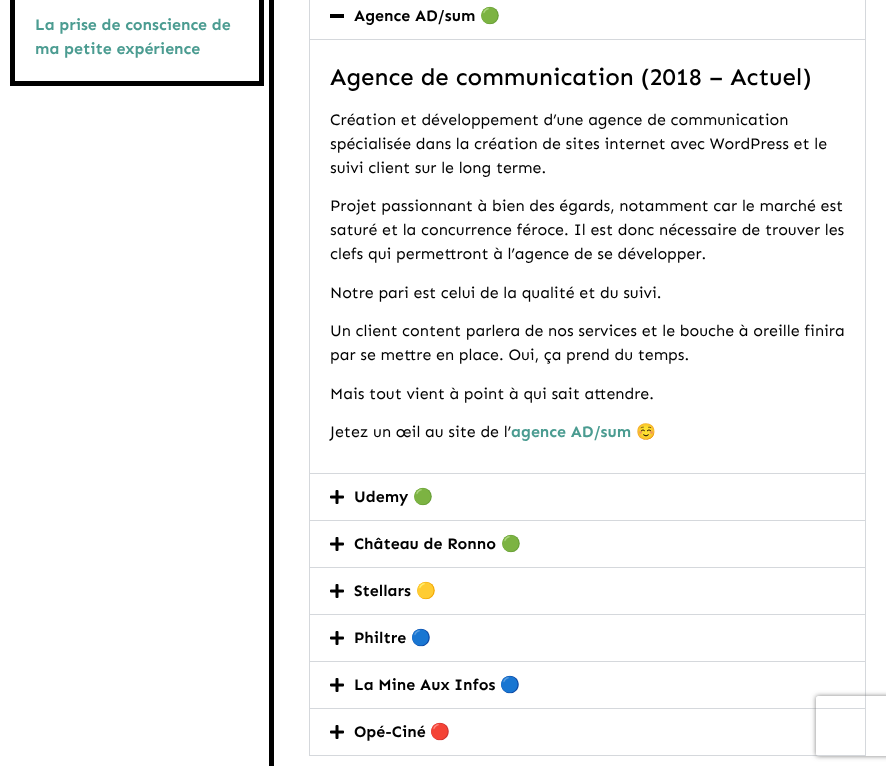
<?xml version="1.0" encoding="UTF-8"?>
<svg xmlns="http://www.w3.org/2000/svg" width="886" height="770">
    <defs>
        <clipPath id="clip1"><path d="M 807 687 H 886 V 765 H 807 Z M 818 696 H 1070 C 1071 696 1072 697 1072 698 V 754 C 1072 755 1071 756 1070 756 H 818 C 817 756 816 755 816 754 V 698 C 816 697 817 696 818 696 Z" clip-rule="evenodd"/></clipPath>
        <filter id="blur1" x="-50%" y="-200%" width="200%" height="500%"><feGaussianBlur stdDeviation="2.5"/></filter>
    </defs>
    <rect width="100%" height="100%" fill="#FFFFFF"/>
    <rect x="12.5" y="-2.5" width="249" height="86" fill="none" stroke="#000000" stroke-width="5"/>
    <text font-family="Sen" font-size="16" font-weight="700" fill="#4B9C91">
        <tspan x="35" y="30">La prise de conscience de</tspan>
        <tspan x="35" y="54">ma petite expérience</tspan>
    </text>
    <rect x="269" y="0" width="5" height="766" fill="#000000"/>
    <rect x="309.5" y="-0.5" width="556" height="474" fill="none" stroke="#D5D8DC"/>
    <rect x="330" y="14" width="14" height="4" fill="#000000"/>
    <text x="354" y="21" font-family="Sen" font-size="16" font-weight="700" fill="#000000">Agence AD/sum</text>
    <text x="480" y="21" font-family="Noto Color Emoji" font-size="16" font-weight="700" fill="#000000">🟢</text>
    <rect x="310" y="39" width="555" height="1" fill="#D5D8DC"/>
    <text x="330" y="85" font-family="Sen" font-size="24" font-weight="500" fill="#000000">Agence de communication (2018 – Actuel)</text>
    <text font-family="Sen" font-size="16" fill="#000000">
        <tspan x="330" y="125">Création et développement d’une agence de communication</tspan>
        <tspan x="330" y="149">spécialisée dans la création de sites internet avec WordPress et le</tspan>
        <tspan x="330" y="173">suivi client sur le long terme.</tspan>
    </text>
    <text font-family="Sen" font-size="16" fill="#000000">
        <tspan x="330" y="211">Projet passionnant à bien des égards, notamment car le marché est</tspan>
        <tspan x="330" y="235">saturé et la concurrence féroce. Il est donc nécessaire de trouver les</tspan>
        <tspan x="330" y="259">clefs qui permettront à l’agence de se développer.</tspan>
    </text>
    <text x="330" y="298" font-family="Sen" font-size="16" fill="#000000">Notre pari est celui de la qualité et du suivi.</text>
    <text font-family="Sen" font-size="16" fill="#000000">
        <tspan x="330" y="336">Un client content parlera de nos services et le bouche à oreille finira</tspan>
        <tspan x="330" y="360">par se mettre en place. Oui, ça prend du temps.</tspan>
    </text>
    <text x="330" y="399" font-family="Sen" font-size="16" fill="#000000">Mais tout vient à point à qui sait attendre.</text>
    <text x="330" y="437" font-family="Sen" font-size="16" fill="#000000">Jetez un œil au site de l’</text>
    <text x="511" y="437" font-family="Sen" font-size="16" font-weight="700" fill="#4B9C91">agence AD/sum</text>
    <text x="636" y="437" font-family="Noto Color Emoji" font-size="16" fill="#000000">☺️</text>
    <rect x="865" y="474" width="1" height="282" fill="#D5D8DC"/>
    <rect x="309" y="520" width="557" height="1" fill="#D5D8DC"/>
    <rect x="309" y="474" width="1" height="47" fill="#D5D8DC"/>
    <image x="330" y="490" width="14" height="14" href="img_01.png"/>
    <text x="354" y="502" font-family="Sen" font-size="16" font-weight="700" fill="#000000">Udemy</text>
    <text x="413" y="502" font-family="Noto Color Emoji" font-size="16" font-weight="700" fill="#000000">🟢</text>
    <rect x="309" y="567" width="557" height="1" fill="#D5D8DC"/>
    <rect x="309" y="521" width="1" height="47" fill="#D5D8DC"/>
    <image x="330" y="537" width="14" height="14" href="img_01.png"/>
    <text x="354" y="549" font-family="Sen" font-size="16" font-weight="700" fill="#000000">Château de Ronno</text>
    <text x="501" y="549" font-family="Noto Color Emoji" font-size="16" font-weight="700" fill="#000000">🟢</text>
    <rect x="309" y="614" width="557" height="1" fill="#D5D8DC"/>
    <rect x="309" y="568" width="1" height="47" fill="#D5D8DC"/>
    <image x="330" y="584" width="14" height="14" href="img_01.png"/>
    <text x="354" y="596" font-family="Sen" font-size="16" font-weight="700" fill="#000000">Stellars</text>
    <text x="416" y="596" font-family="Noto Color Emoji" font-size="16" font-weight="700" fill="#000000">🟡</text>
    <rect x="309" y="661" width="557" height="1" fill="#D5D8DC"/>
    <rect x="309" y="615" width="1" height="47" fill="#D5D8DC"/>
    <image x="330" y="631" width="14" height="14" href="img_01.png"/>
    <text x="354" y="643" font-family="Sen" font-size="16" font-weight="700" fill="#000000">Philtre</text>
    <text x="411" y="643" font-family="Noto Color Emoji" font-size="16" font-weight="700" fill="#000000">🔵</text>
    <rect x="309" y="708" width="557" height="1" fill="#D5D8DC"/>
    <rect x="309" y="662" width="1" height="47" fill="#D5D8DC"/>
    <image x="330" y="678" width="14" height="14" href="img_01.png"/>
    <text x="354" y="690" font-family="Sen" font-size="16" font-weight="700" fill="#000000">La Mine Aux Infos</text>
    <text x="500" y="690" font-family="Noto Color Emoji" font-size="16" font-weight="700" fill="#000000">🔵</text>
    <rect x="309" y="755" width="557" height="1" fill="#D5D8DC"/>
    <rect x="309" y="709" width="1" height="47" fill="#D5D8DC"/>
    <image x="330" y="725" width="14" height="14" href="img_01.png"/>
    <text x="354" y="737" font-family="Sen" font-size="16" font-weight="700" fill="#000000">Opé-Ciné</text>
    <text x="430" y="737" font-family="Noto Color Emoji" font-size="16" font-weight="700" fill="#000000">🔴</text>
    <g clip-path="url(#clip1)">
        <rect x="816" y="696" width="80" height="60" rx="2" fill="#808080" filter="url(#blur1)"/>
    </g>
</svg>
